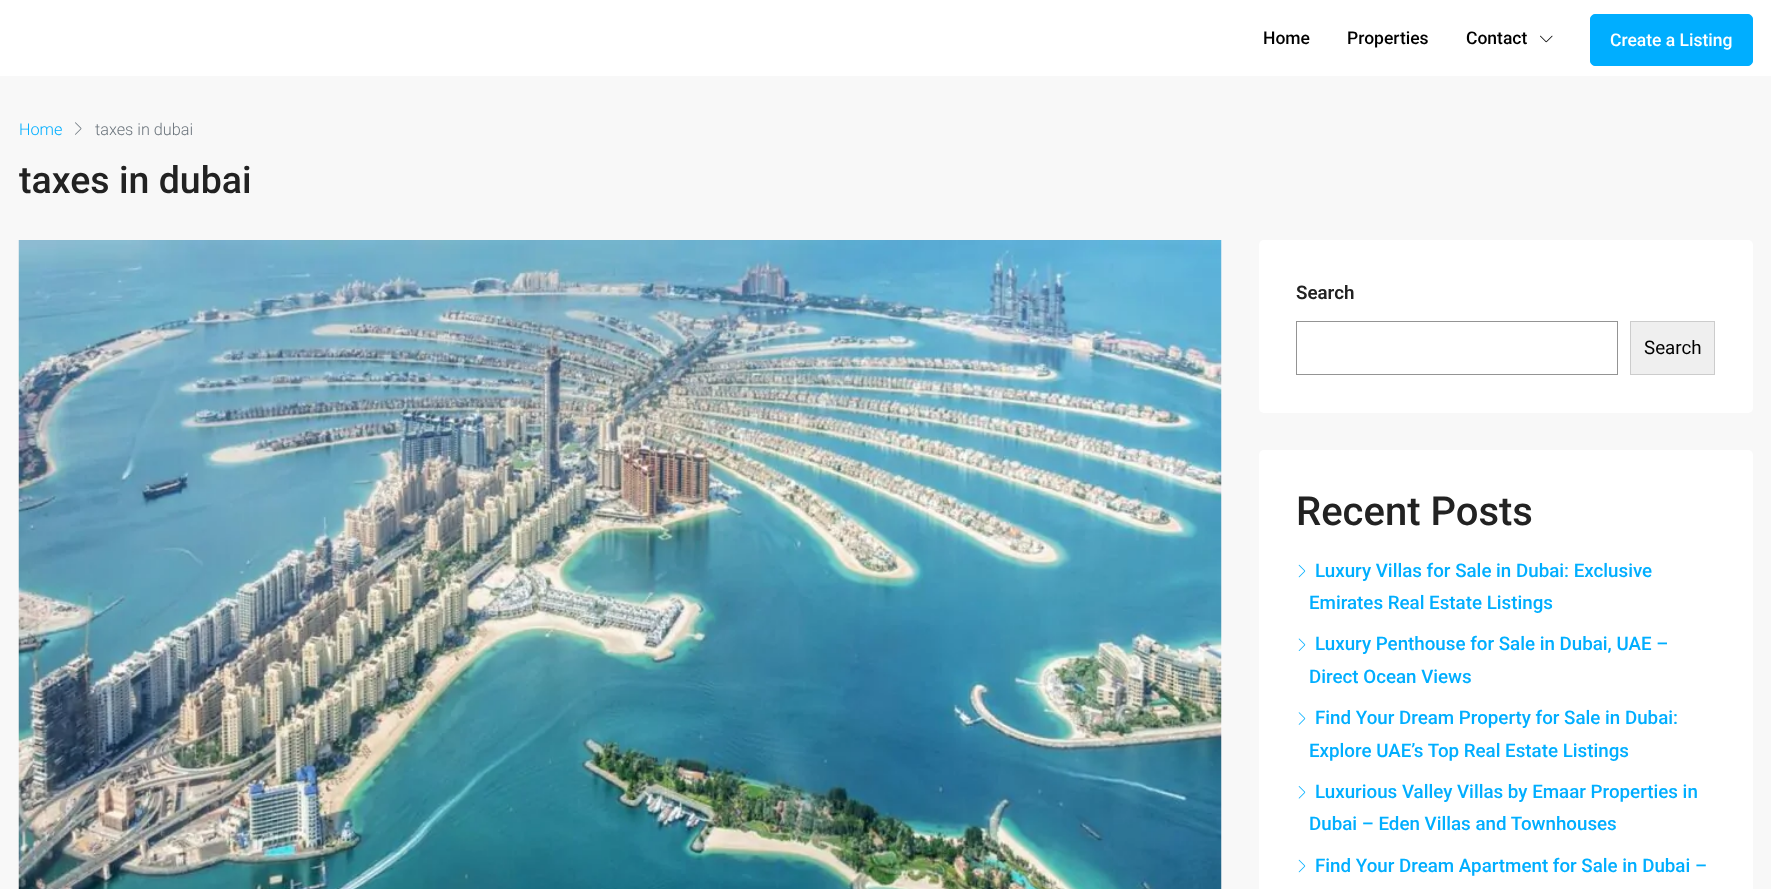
<?xml version="1.0" encoding="UTF-8"?>
<svg xmlns="http://www.w3.org/2000/svg" width="1771" height="889">
    <rect width="100%" height="100%" fill="#F8F8F8"/>
    <rect x="0" y="0" width="1771" height="76" fill="#FFFFFF"/>
    <text x="1263" y="44" font-family="Roboto" font-size="17.5" font-weight="500" fill="#000000">Home</text>
    <text x="1347" y="44" font-family="Roboto" font-size="17.5" font-weight="500" fill="#000000">Properties</text>
    <text x="1466" y="44" font-family="Roboto" font-size="17.5" font-weight="500" fill="#000000">Contact</text>
    <image x="1540" y="35" width="13" height="8" href="img_01.png"/>
    <rect x="1590.5" y="14.5" width="162" height="51" rx="4.5" fill="#00AEFF" stroke="#00AEFF"/>
    <text x="1610" y="46" font-family="Roboto" font-size="17.5" font-weight="500" fill="#FFFFFF">Create a Listing</text>
    <text x="19" y="135" font-family="Roboto" font-size="16.25" font-weight="300" fill="#00AEFF">Home</text>
    <image x="75" y="122" width="7" height="13" href="img_02.png"/>
    <text x="95" y="135" font-family="Roboto" font-size="16.25" font-weight="300" fill="#6C757D">taxes in dubai</text>
    <text x="19" y="193" font-family="Roboto" font-size="37.5" font-weight="500" fill="#222222">taxes in dubai</text>
    <image x="18" y="240" width="1204" height="649" href="img_03.png"/>
    <rect x="1259" y="240" width="494" height="173" rx="5" fill="#FFFFFF"/>
    <text x="1296" y="299" font-family="Roboto" font-size="18.75" font-weight="600" fill="#222222">Search</text>
    <rect x="1296.5" y="321.5" width="321" height="53" fill="none" stroke="#949494"/>
    <rect x="1630.5" y="321.5" width="84" height="53" fill="#EFEFEF" stroke="#CCCCCC"/>
    <text x="1644" y="354" font-family="Roboto" font-size="18.75" fill="#000000">Search</text>
    <rect x="1259" y="450" width="494" height="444" rx="5" fill="#FFFFFF"/>
    <text x="1296" y="525" font-family="Roboto" font-size="40" font-weight="500" fill="#222222">Recent Posts</text>
    <image x="1298" y="564" width="8" height="14" href="img_04.png"/>
    <text x="1315" y="577" font-family="Roboto" font-size="18.75" font-weight="500" fill="#00AEFF">Luxury Villas for Sale in Dubai: Exclusive</text>
    <text x="1309" y="609" font-family="Roboto" font-size="18.75" font-weight="500" fill="#00AEFF">Emirates Real Estate Listings</text>
    <image x="1298" y="638" width="8" height="13" href="img_05.png"/>
    <text x="1315" y="650" font-family="Roboto" font-size="18.75" font-weight="500" fill="#00AEFF">Luxury Penthouse for Sale in Dubai, UAE –</text>
    <text x="1309" y="683" font-family="Roboto" font-size="18.75" font-weight="500" fill="#00AEFF">Direct Ocean Views</text>
    <image x="1298" y="712" width="8" height="13" href="img_06.png"/>
    <text x="1315" y="724" font-family="Roboto" font-size="18.75" font-weight="500" fill="#00AEFF">Find Your Dream Property for Sale in Dubai:</text>
    <text x="1309" y="757" font-family="Roboto" font-size="18.75" font-weight="500" fill="#00AEFF">Explore UAE’s Top Real Estate Listings</text>
    <image x="1298" y="786" width="8" height="13" href="img_07.png"/>
    <text x="1315" y="798" font-family="Roboto" font-size="18.75" font-weight="500" fill="#00AEFF">Luxurious Valley Villas by Emaar Properties in</text>
    <text x="1309" y="830" font-family="Roboto" font-size="18.75" font-weight="500" fill="#00AEFF">Dubai – Eden Villas and Townhouses</text>
    <image x="1298" y="859" width="8" height="14" href="img_04.png"/>
    <text x="1315" y="872" font-family="Roboto" font-size="18.75" font-weight="500" fill="#00AEFF">Find Your Dream Apartment for Sale in Dubai –</text>
</svg>
